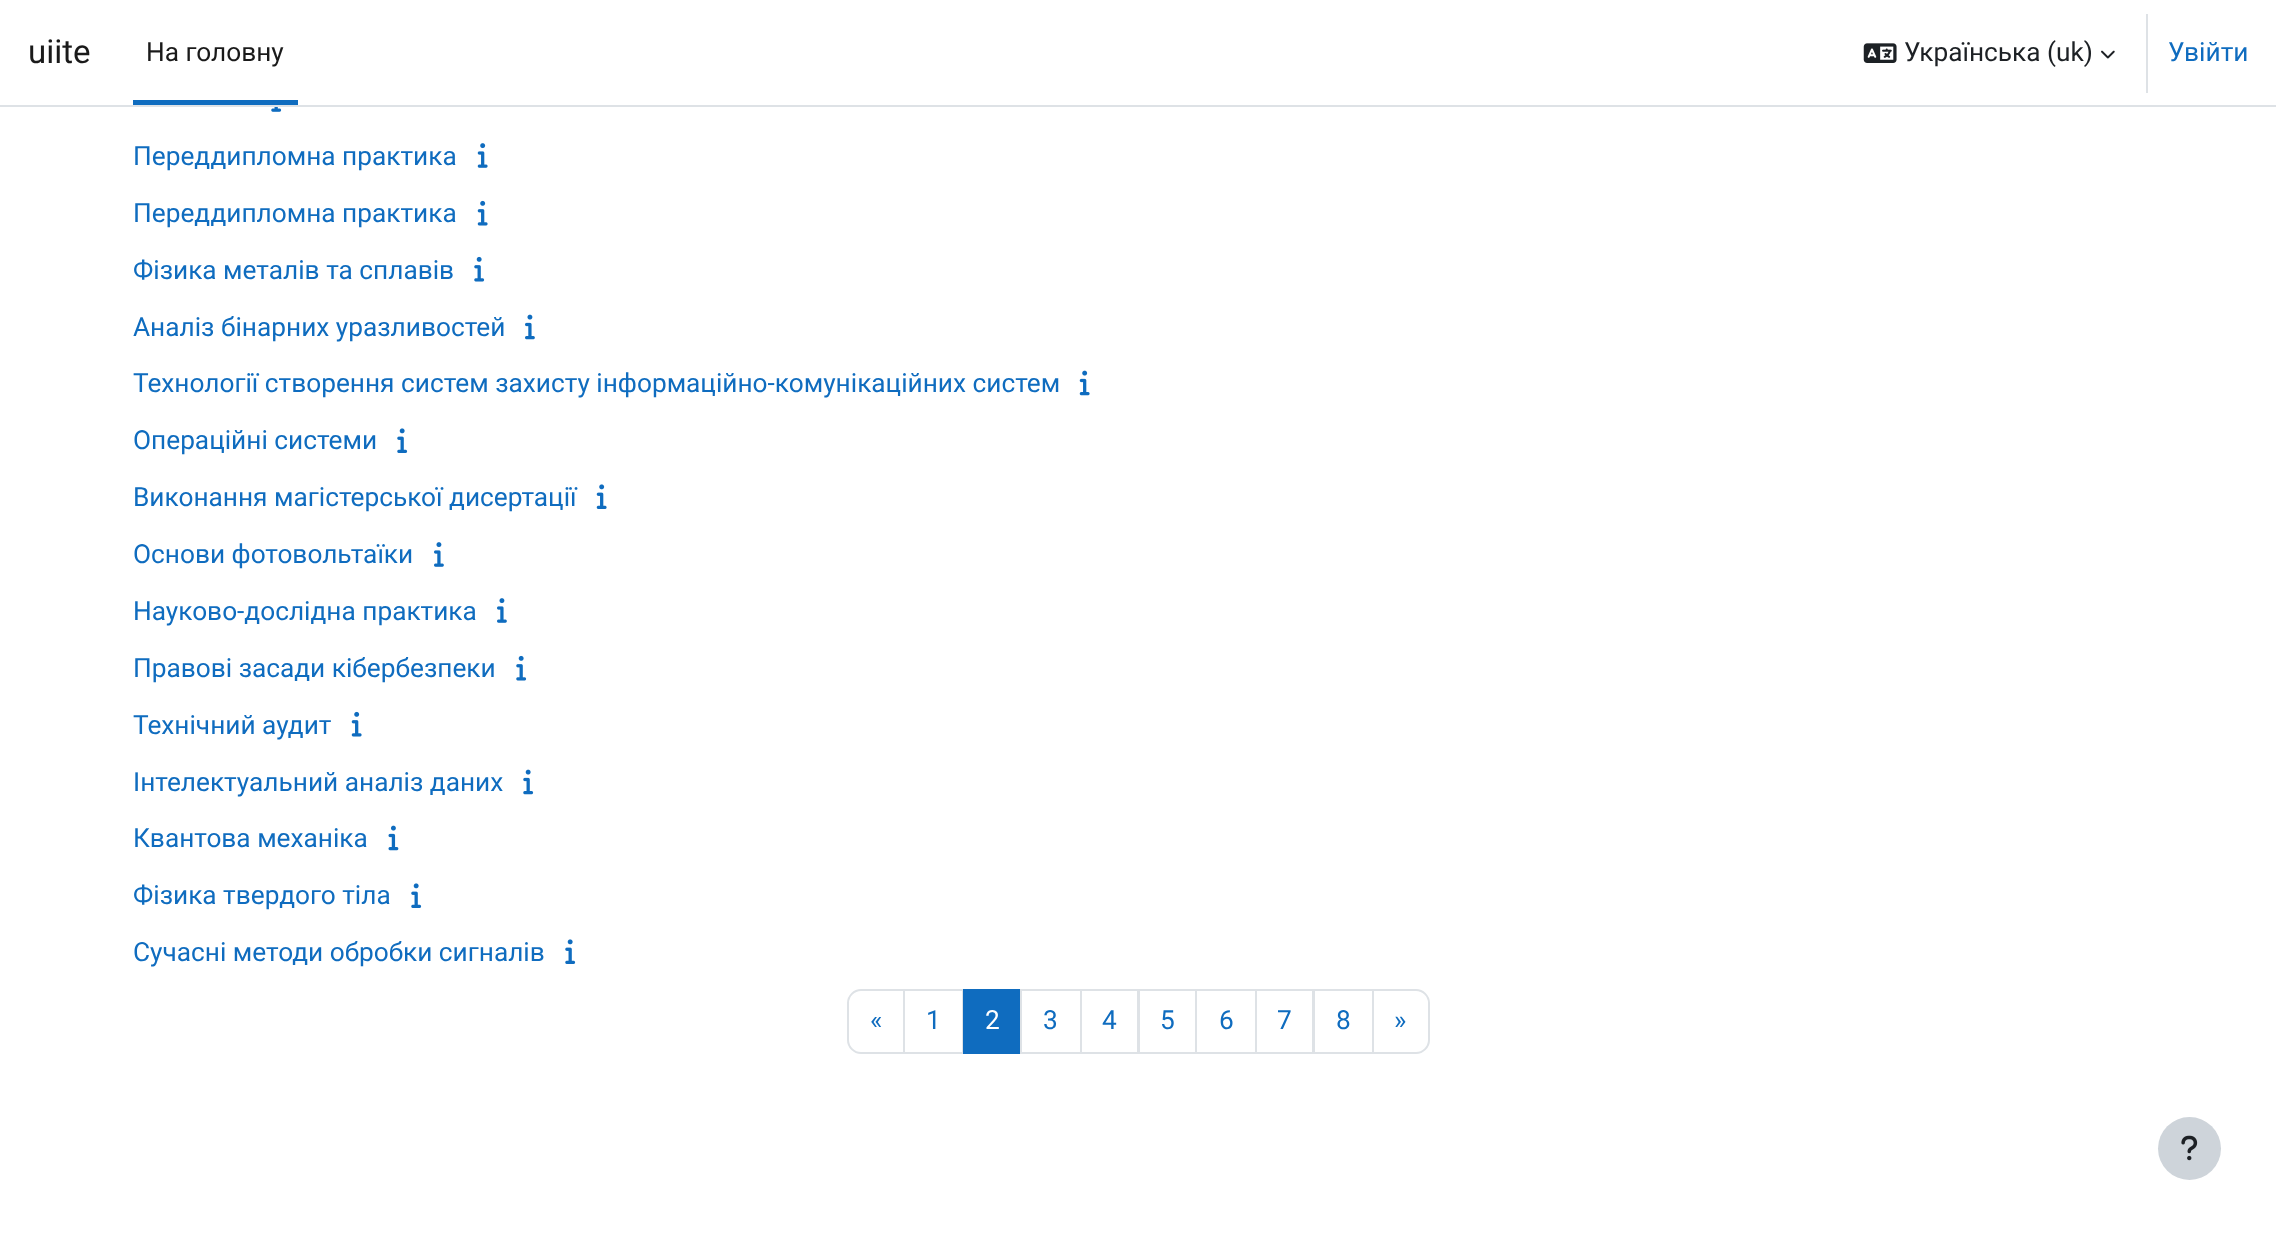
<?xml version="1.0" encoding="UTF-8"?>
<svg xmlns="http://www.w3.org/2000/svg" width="2276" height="1235">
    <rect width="100%" height="100%" fill="#FFFFFF"/>
    <rect x="0" y="105" width="2276" height="2" fill="#DEE2E6"/>
    <text x="28" y="63" font-family="Roboto" font-size="33" fill="#1A1A1A">uiite</text>
    <rect x="133" y="100" width="165" height="5" fill="#0F6CBF"/>
    <text x="146" y="61" font-family="Roboto" font-size="26.25" fill="#1A1A1A">На головну</text>
    <image x="1863" y="43" width="34" height="20" href="img_01.png"/>
    <text x="1904" y="61" font-family="Roboto" font-size="26.25" fill="#1D2125">Українська (uk)</text>
    <image x="2101" y="50" width="14" height="9" href="img_02.png"/>
    <rect x="2146" y="14" width="2" height="79" fill="#DEE2E6"/>
    <text x="2168" y="61" font-family="Roboto" font-size="26.25" fill="#0F6CBF">Увійти</text>
    <image x="271" y="107" width="11" height="5" href="img_03.png"/>
    <text x="133" y="165" font-family="Roboto" font-size="26.25" fill="#0F6CBF">Переддипломна практика</text>
    <image x="477" y="143" width="11" height="25" href="img_04.png"/>
    <text x="133" y="222" font-family="Roboto" font-size="26.25" fill="#0F6CBF">Переддипломна практика</text>
    <image x="477" y="200" width="11" height="26" href="img_05.png"/>
    <text x="133" y="279" font-family="Roboto" font-size="26.25" fill="#0F6CBF">Фізика металів та сплавів</text>
    <image x="474" y="256" width="11" height="26" href="img_06.png"/>
    <text x="133" y="336" font-family="Roboto" font-size="26.25" fill="#0F6CBF">Аналіз бінарних уразливостей</text>
    <image x="525" y="314" width="10" height="26" href="img_07.png"/>
    <text x="133" y="392" font-family="Roboto" font-size="26.25" fill="#0F6CBF">Технології створення систем захисту інформаційно-комунікаційних систем</text>
    <image x="1079" y="370" width="11" height="26" href="img_08.png"/>
    <text x="133" y="449" font-family="Roboto" font-size="26.25" fill="#0F6CBF">Операційні системи</text>
    <image x="397" y="428" width="11" height="25" href="img_09.png"/>
    <text x="133" y="506" font-family="Roboto" font-size="26.25" fill="#0F6CBF">Виконання магістерської дисертації</text>
    <image x="596" y="484" width="11" height="25" href="img_10.png"/>
    <text x="133" y="563" font-family="Roboto" font-size="26.25" fill="#0F6CBF">Основи фотовольтаїки</text>
    <image x="434" y="542" width="10" height="25" href="img_11.png"/>
    <text x="133" y="620" font-family="Roboto" font-size="26.25" fill="#0F6CBF">Науково-дослідна практика</text>
    <image x="497" y="598" width="10" height="25" href="img_11.png"/>
    <text x="133" y="677" font-family="Roboto" font-size="26.25" fill="#0F6CBF">Правові засади кібербезпеки</text>
    <image x="516" y="655" width="11" height="26" href="img_06.png"/>
    <text x="133" y="734" font-family="Roboto" font-size="26.25" fill="#0F6CBF">Технічний аудит</text>
    <image x="351" y="711" width="11" height="26" href="img_05.png"/>
    <text x="133" y="791" font-family="Roboto" font-size="26.25" fill="#0F6CBF">Інтелектуальний аналіз даних</text>
    <image x="523" y="769" width="11" height="26" href="img_12.png"/>
    <text x="133" y="847" font-family="Roboto" font-size="26.25" fill="#0F6CBF">Квантова механіка</text>
    <image x="388" y="825" width="11" height="26" href="img_13.png"/>
    <text x="133" y="904" font-family="Roboto" font-size="26.25" fill="#0F6CBF">Фізика твердого тіла</text>
    <image x="411" y="883" width="11" height="25" href="img_09.png"/>
    <text x="133" y="961" font-family="Roboto" font-size="26.25" fill="#0F6CBF">Сучасні методи обробки сигналів</text>
    <image x="565" y="939" width="11" height="25" href="img_09.png"/>
    <path d="M 861 990 H 904 V 1053 H 861 C 854 1053 848 1047 848 1040 V 1003 C 848 996 854 990 861 990 Z" fill="none" stroke="#DEE2E6" stroke-width="2"/>
    <text x="870" y="1029" font-family="Roboto" font-size="26.25" fill="#0F6CBF">«</text>
    <rect x="904" y="990" width="59" height="63" fill="none" stroke="#DEE2E6" stroke-width="2"/>
    <text x="926" y="1029" font-family="Roboto" font-size="26.25" fill="#0F6CBF">1</text>
    <rect x="963" y="989" width="57" height="65" fill="#0F6CBF"/>
    <text x="985" y="1029" font-family="Roboto" font-size="26.25" fill="#FFFFFF">2</text>
    <rect x="1021" y="990" width="60" height="63" fill="none" stroke="#DEE2E6" stroke-width="2"/>
    <text x="1043" y="1029" font-family="Roboto" font-size="26.25" fill="#0F6CBF">3</text>
    <rect x="1081" y="990" width="57" height="63" fill="none" stroke="#DEE2E6" stroke-width="2"/>
    <text x="1102" y="1029" font-family="Roboto" font-size="26.25" fill="#0F6CBF">4</text>
    <rect x="1139" y="990" width="57" height="63" fill="none" stroke="#DEE2E6" stroke-width="2"/>
    <text x="1160" y="1029" font-family="Roboto" font-size="26.25" fill="#0F6CBF">5</text>
    <rect x="1196" y="990" width="60" height="63" fill="none" stroke="#DEE2E6" stroke-width="2"/>
    <text x="1219" y="1029" font-family="Roboto" font-size="26.25" fill="#0F6CBF">6</text>
    <rect x="1256" y="990" width="57" height="63" fill="none" stroke="#DEE2E6" stroke-width="2"/>
    <text x="1277" y="1029" font-family="Roboto" font-size="26.25" fill="#0F6CBF">7</text>
    <rect x="1314" y="990" width="59" height="63" fill="none" stroke="#DEE2E6" stroke-width="2"/>
    <text x="1336" y="1029" font-family="Roboto" font-size="26.25" fill="#0F6CBF">8</text>
    <path d="M 1373 990 H 1416 C 1423 990 1429 996 1429 1003 V 1040 C 1429 1047 1423 1053 1416 1053 H 1373 Z" fill="#FFFFFF" stroke="#DEE2E6" stroke-width="2"/>
    <text x="1394" y="1029" font-family="Roboto" font-size="26.25" fill="#0F6CBF">»</text>
    <circle cx="2189.5" cy="1148.5" r="31.5" fill="#CED4DA"/>
    <image x="2181" y="1135" width="17" height="26" href="img_14.png"/>
</svg>
